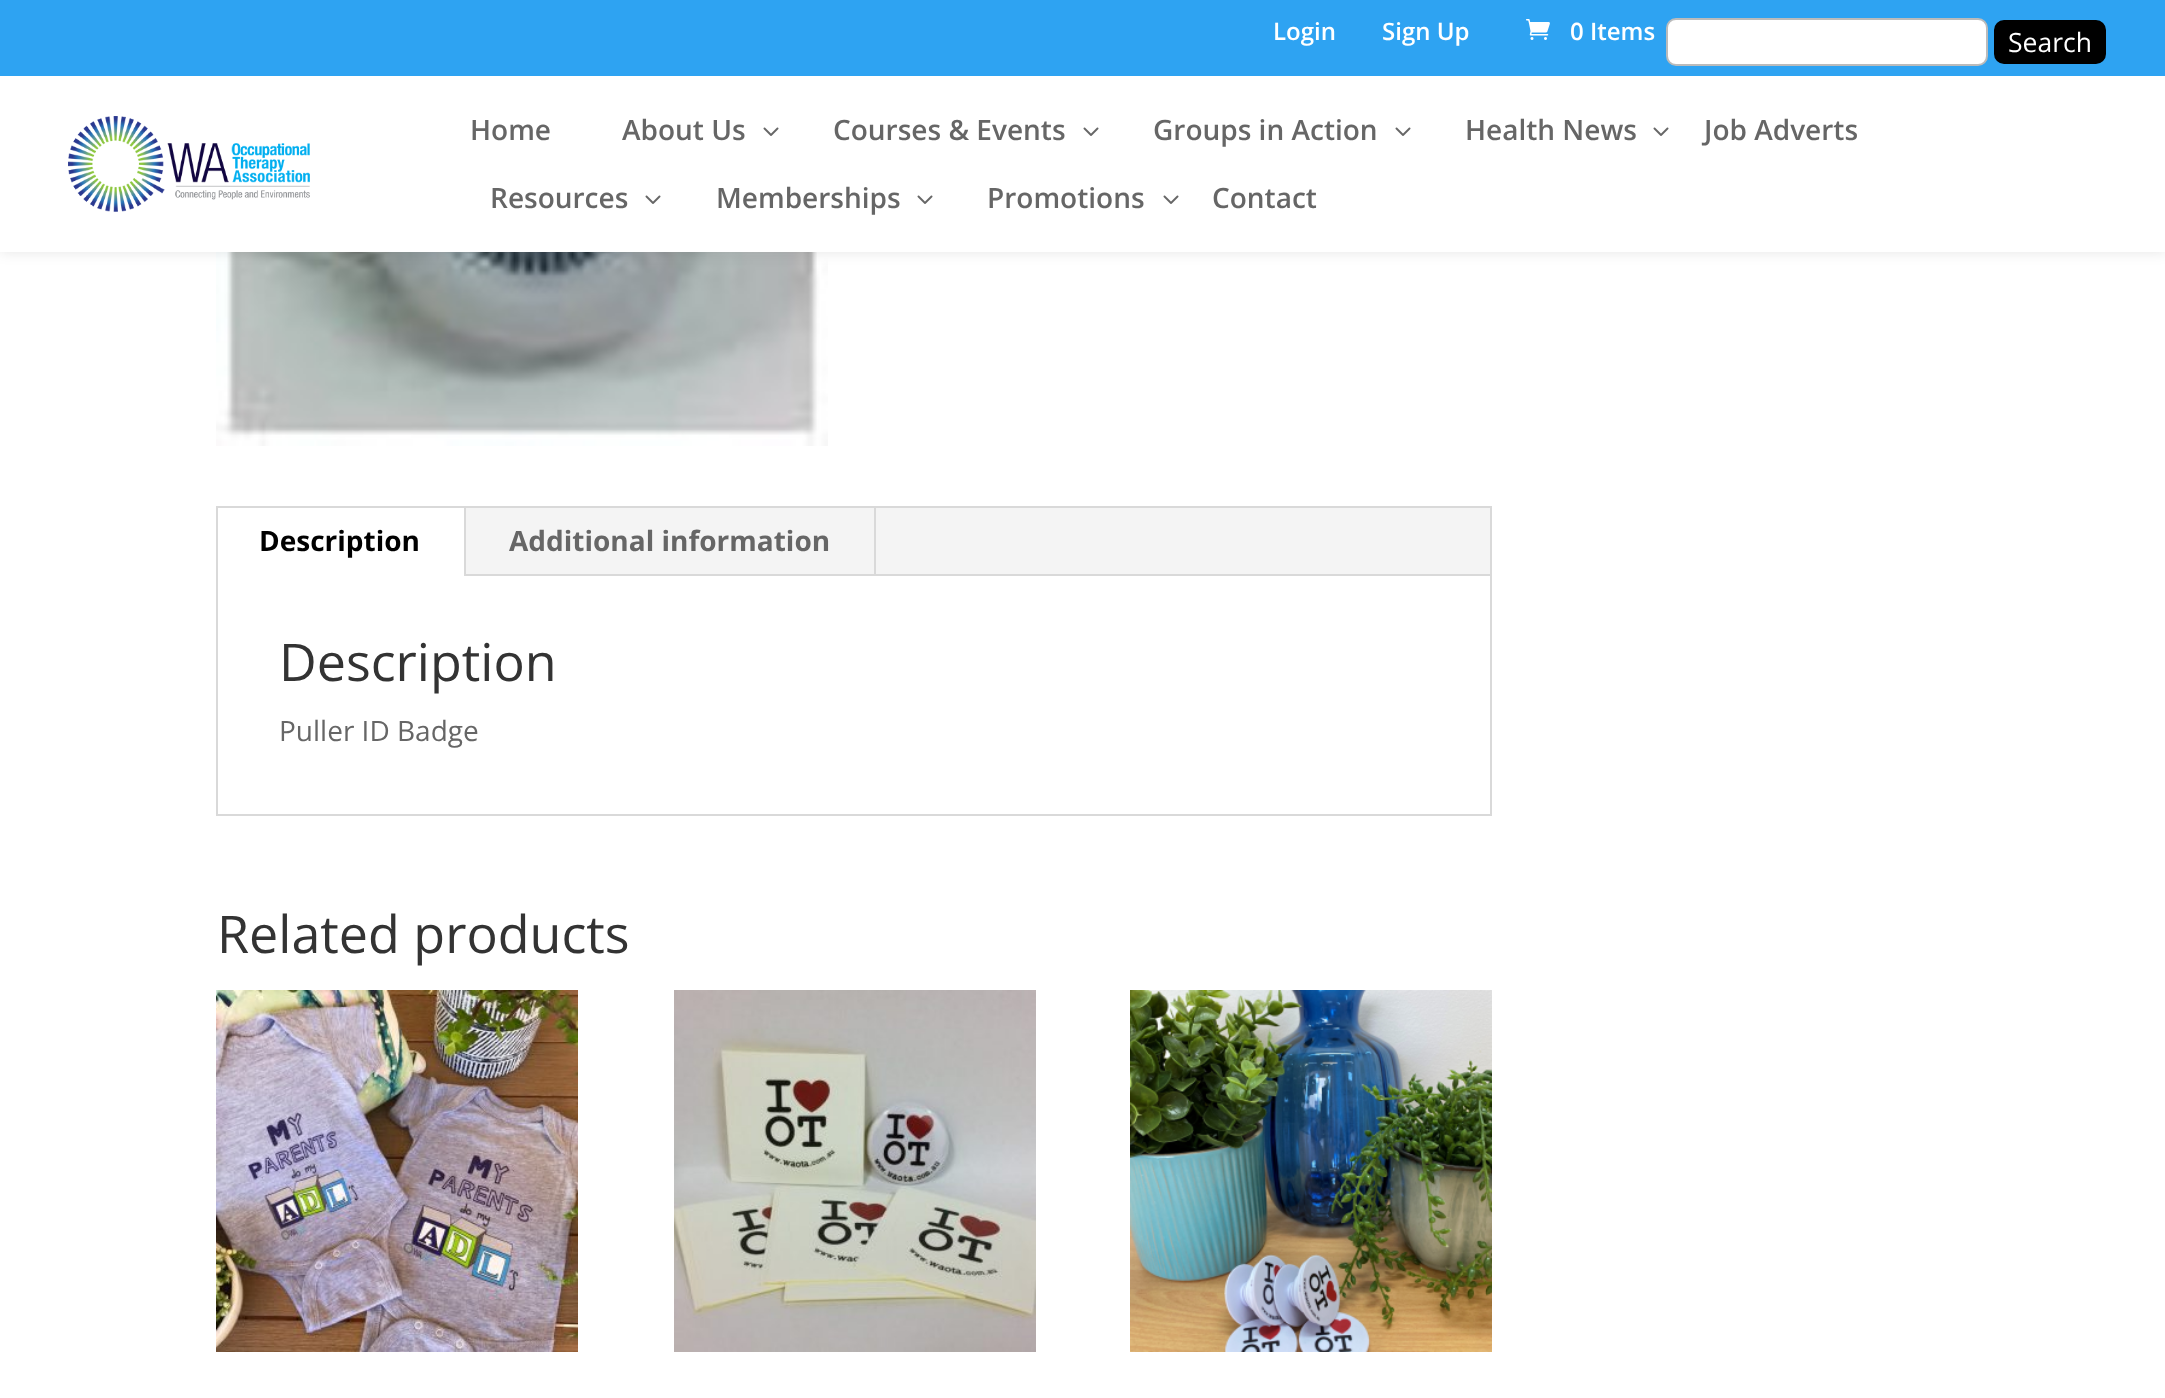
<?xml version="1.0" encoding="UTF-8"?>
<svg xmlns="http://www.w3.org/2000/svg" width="2165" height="1398">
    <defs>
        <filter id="blur1" x="-50%" y="-200%" width="200%" height="500%"><feGaussianBlur stdDeviation="7"/></filter>
    </defs>
    <rect width="100%" height="100%" fill="#FFFFFF"/>
    <image x="216" y="252" width="612" height="194" href="img_04.png"/>
    <rect x="0" y="76" width="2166" height="176" fill="#000000" fill-opacity="0.1" filter="url(#blur1)"/>
    <rect x="0" y="0" width="2165" height="76" fill="#2EA3F2"/>
    <text x="1273" y="40" font-family="Open Sans" font-size="24" font-weight="600" fill="#FFFFFF">Login</text>
    <text x="1382" y="40" font-family="Open Sans" font-size="24" font-weight="600" fill="#FFFFFF">Sign Up</text>
    <image x="1526" y="19" width="24" height="21" href="img_01.png"/>
    <text x="1570" y="40" font-family="Open Sans" font-size="24" font-weight="600" fill="#FFFFFF">0 Items</text>
    <rect x="1667" y="19" width="320" height="46" rx="9" fill="#FFFFFF" stroke="#BBBBBB" stroke-width="2"/>
    <rect x="1995" y="21" width="110" height="42" rx="9" fill="#000000" stroke="#000000" stroke-width="2"/>
    <text x="2008" y="52" font-family="Open Sans" font-size="26.5" fill="#FFFFFF">Search</text>
    <rect x="0" y="76" width="2165" height="176" fill="#FFFFFF"/>
    <image x="68" y="116" width="242" height="96" href="img_02.png"/>
    <text x="470" y="140" font-family="Open Sans" font-size="28" font-weight="600" fill="#666666">Home</text>
    <text x="622" y="140" font-family="Open Sans" font-size="28" font-weight="600" fill="#666666">About Us</text>
    <image x="763" y="127" width="16" height="9" href="img_03.png"/>
    <text x="833" y="140" font-family="Open Sans" font-size="28" font-weight="600" fill="#666666">Courses &amp; Events</text>
    <image x="1083" y="127" width="16" height="9" href="img_03.png"/>
    <text x="1153" y="140" font-family="Open Sans" font-size="28" font-weight="600" fill="#666666">Groups in Action</text>
    <image x="1395" y="127" width="16" height="9" href="img_03.png"/>
    <text x="1465" y="140" font-family="Open Sans" font-size="28" font-weight="600" fill="#666666">Health News</text>
    <image x="1653" y="127" width="16" height="9" href="img_03.png"/>
    <text x="1704" y="140" font-family="Open Sans" font-size="28" font-weight="600" fill="#666666">Job Adverts</text>
    <text x="490" y="208" font-family="Open Sans" font-size="28" font-weight="600" fill="#666666">Resources</text>
    <image x="645" y="195" width="16" height="9" href="img_03.png"/>
    <text x="716" y="208" font-family="Open Sans" font-size="28" font-weight="600" fill="#666666">Memberships</text>
    <image x="917" y="195" width="16" height="9" href="img_03.png"/>
    <text x="987" y="208" font-family="Open Sans" font-size="28" font-weight="600" fill="#666666">Promotions</text>
    <image x="1163" y="195" width="16" height="9" href="img_03.png"/>
    <text x="1212" y="208" font-family="Open Sans" font-size="28" font-weight="600" fill="#666666">Contact</text>
    <rect x="217" y="507" width="1274" height="308" fill="none" stroke="#D9D9D9" stroke-width="2"/>
    <rect x="466" y="508" width="1024" height="66" fill="#F4F4F4"/>
    <rect x="464" y="508" width="2" height="68" fill="#D9D9D9"/>
    <text x="259" y="551" font-family="Open Sans" font-size="28" font-weight="700" fill="#000000">Description</text>
    <rect x="874" y="508" width="2" height="68" fill="#D9D9D9"/>
    <text x="509" y="551" font-family="Open Sans" font-size="28" font-weight="700" fill="#666666">Additional information</text>
    <rect x="466" y="574" width="1024" height="2" fill="#D9D9D9"/>
    <text x="279" y="681" font-family="Open Sans" font-size="52" fill="#333333">Description</text>
    <text x="279" y="741" font-family="Open Sans" font-size="28" fill="#666666">Puller ID Badge</text>
    <text x="217" y="953" font-family="Open Sans" font-size="52" fill="#333333">Related products</text>
    <image x="216" y="990" width="362" height="362" href="img_05.png"/>
    <image x="674" y="990" width="362" height="362" href="img_06.png"/>
    <image x="1130" y="990" width="362" height="362" href="img_07.png"/>
</svg>
